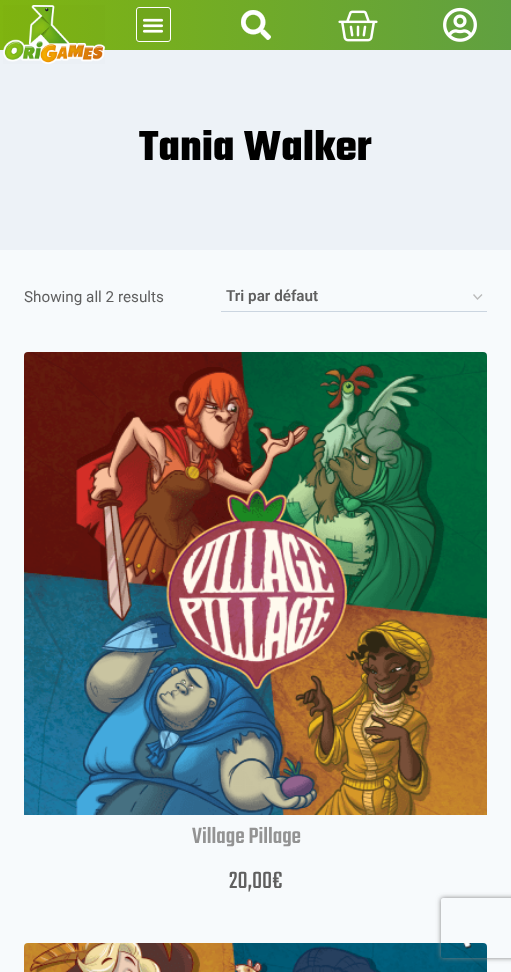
<?xml version="1.0" encoding="UTF-8"?>
<svg xmlns="http://www.w3.org/2000/svg" width="511" height="972">
    <defs>
        <linearGradient id="g1" gradientUnits="userSpaceOnUse" x1="0" y1="25" x2="511" y2="25"><stop offset="0" stop-color="#80B510"/><stop offset="1" stop-color="#60A041"/></linearGradient>
        <clipPath id="clip1"><path d="M 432 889 H 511 V 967 H 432 Z M 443 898 H 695 C 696 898 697 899 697 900 V 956 C 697 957 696 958 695 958 H 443 C 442 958 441 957 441 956 V 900 C 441 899 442 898 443 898 Z" clip-rule="evenodd"/></clipPath>
        <filter id="blur1" x="-50%" y="-200%" width="200%" height="500%"><feGaussianBlur stdDeviation="2.5"/></filter>
    </defs>
    <rect width="100%" height="100%" fill="#F7FAFC"/>
    <rect x="0" y="0" width="511" height="50" fill="url(#g1)"/>
    <rect x="0" y="50" width="511" height="200" fill="#EDF2F7"/>
    <image x="3" y="5" width="102" height="59" href="img_01.png"/>
    <rect x="136" y="7" width="35" height="35" fill="#000000" fill-opacity="0.05"/>
    <rect x="136.5" y="7.5" width="34" height="34" rx="2.5" fill="none" stroke="#FFFFFF"/>
    <image x="142" y="18" width="22" height="15" href="img_02.png"/>
    <image x="241" y="10" width="30" height="30" href="img_03.png"/>
    <image x="338" y="10" width="40" height="32" href="img_04.png"/>
    <image x="443" y="7" width="34" height="35" href="img_05.png"/>
    <text x="139" y="160" font-family="Teko" font-size="45" font-weight="300" fill="#000000">Tania Walker</text>
    <text x="24" y="302" font-family="Roboto" font-size="15.25" fill="#5F5F5F">Showing all 2 results</text>
    <path d="M 473.5 294.5 L 477.5 299 L 482 294.5" fill="none" stroke="#BBBBBB" stroke-width="1.4"/>
    <rect x="221" y="311" width="266" height="1" fill="#CBD5E0"/>
    <text x="226" y="301" font-family="Roboto" font-size="15.25" font-weight="600" fill="#5F5F5F">Tri par défaut</text>
    <image x="24" y="352" width="463" height="463" href="img_06.png"/>
    <text x="192" y="843" font-family="Teko" font-size="24" font-weight="500" fill="#939393">Village Pillage</text>
    <text x="229" y="888" font-family="Teko" font-size="26" fill="#5F5F5F">20,00€</text>
    <image x="24" y="943" width="463" height="29" href="img_07.png"/>
    <g clip-path="url(#clip1)">
        <rect x="441" y="898" width="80" height="60" rx="2" fill="#808080" filter="url(#blur1)"/>
    </g>
</svg>
